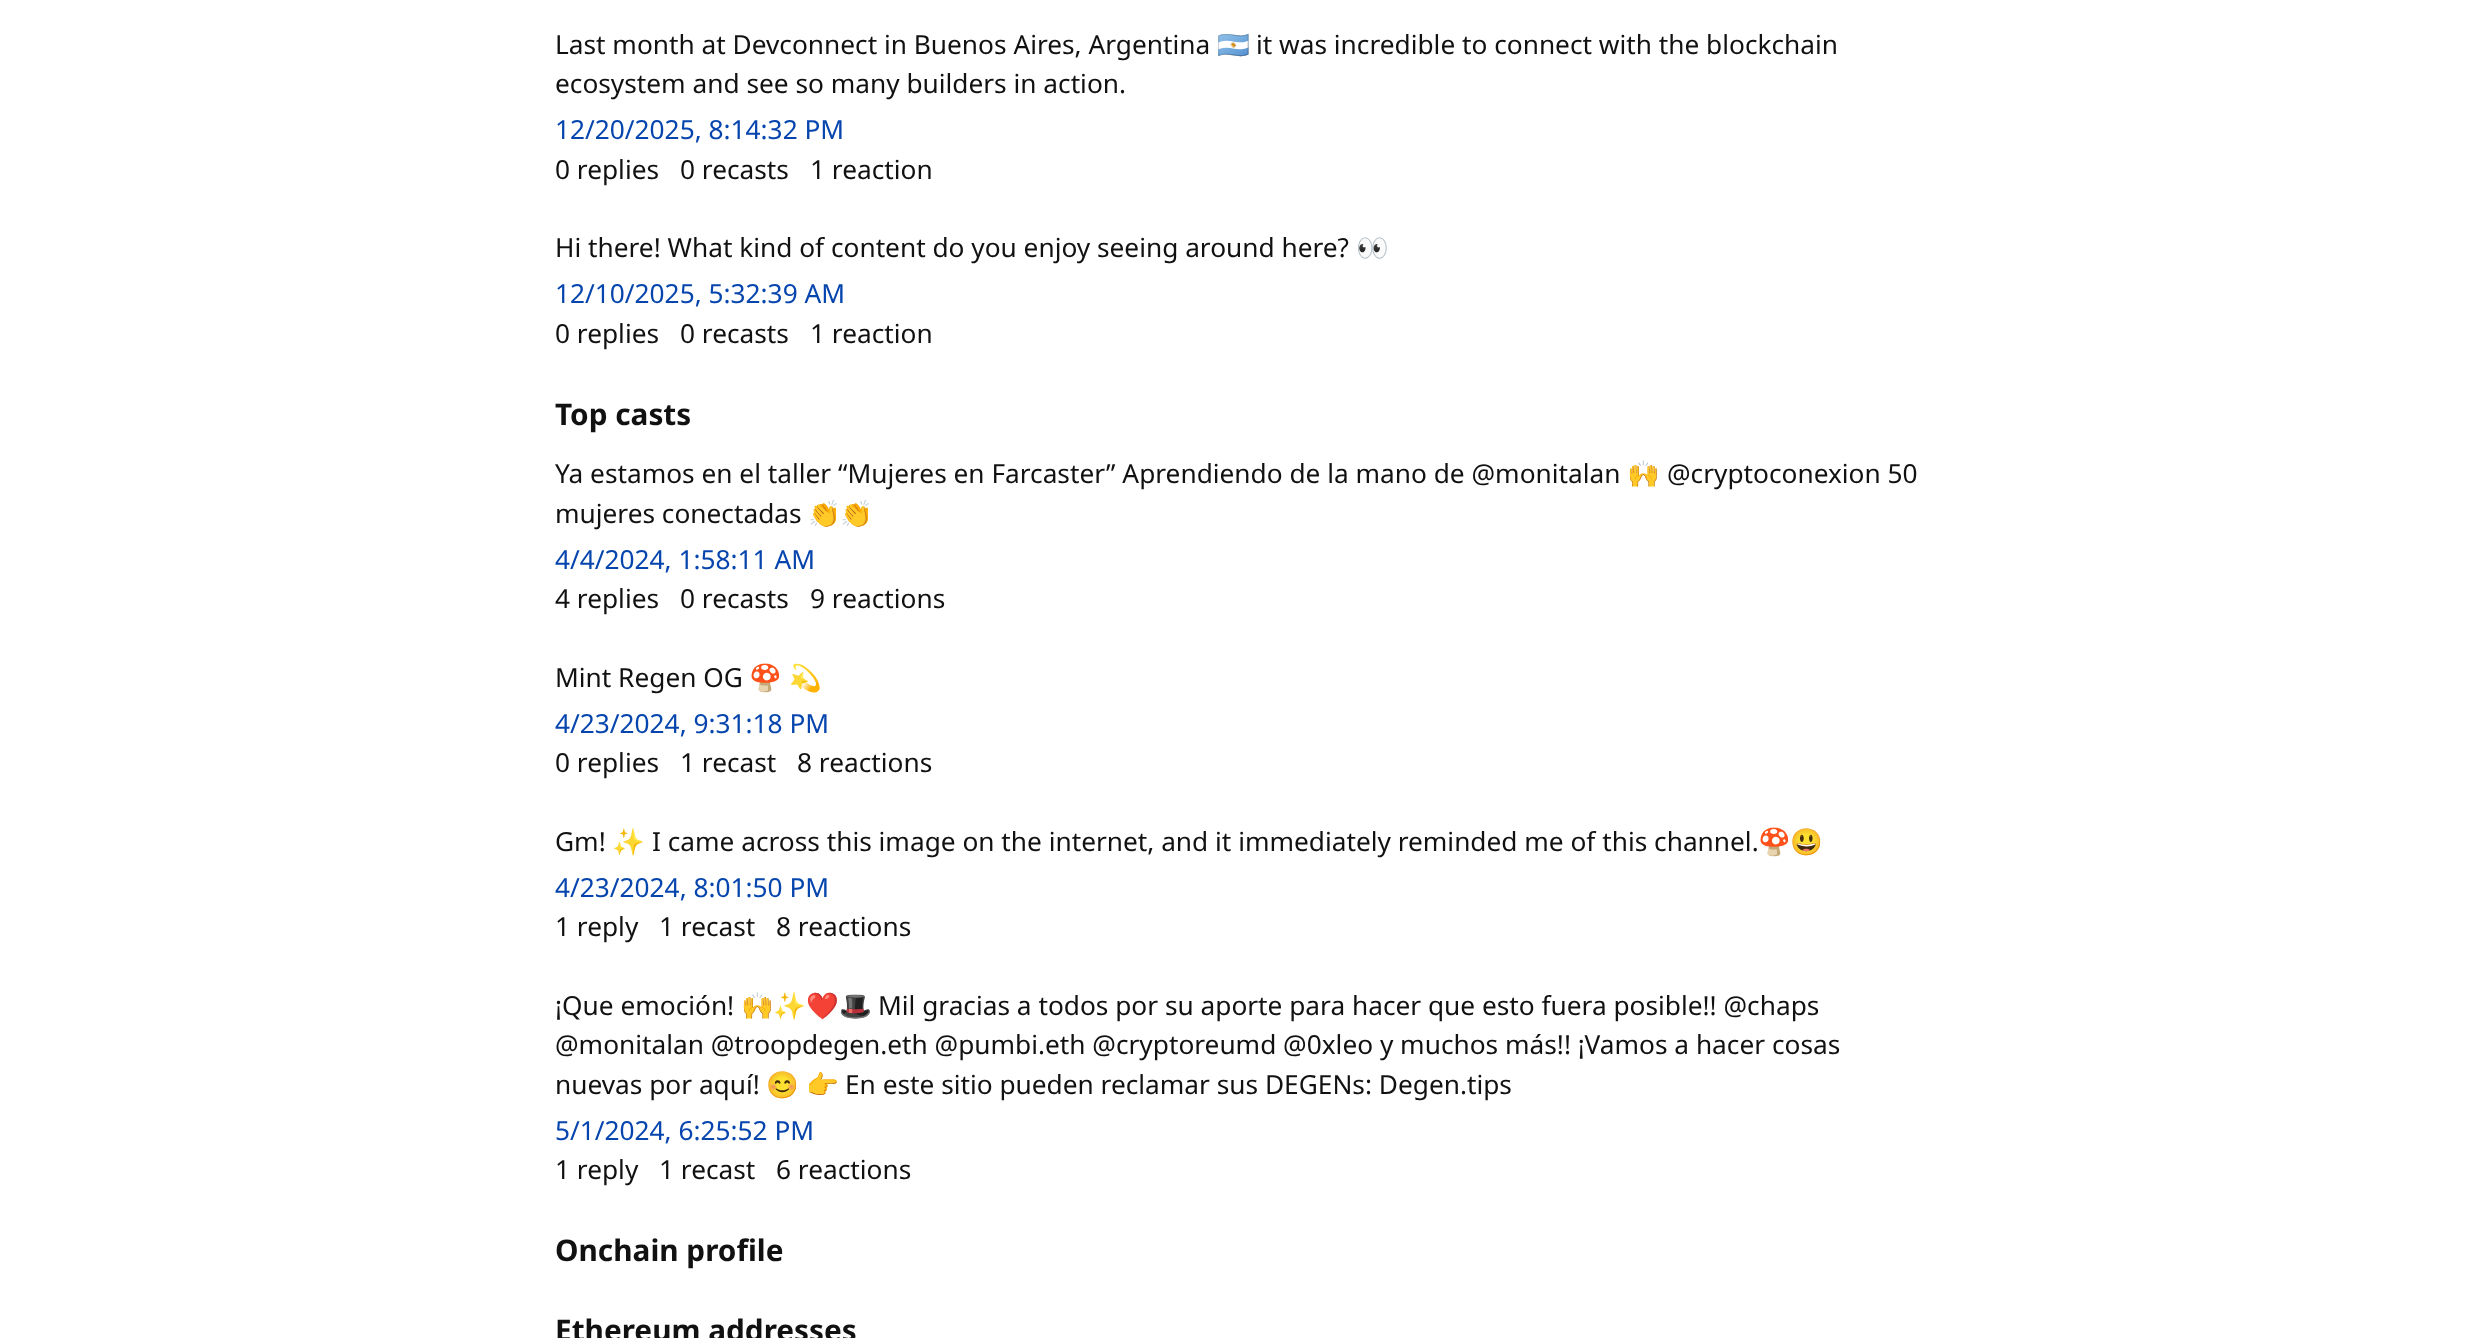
<?xml version="1.0" encoding="UTF-8"?>
<svg xmlns="http://www.w3.org/2000/svg" width="2474" height="1338">
    <rect width="100%" height="100%" fill="#FFFFFF"/>
    <text x="555" y="54" font-family="Noto Sans" font-size="26.25" fill="#111111">Last month at Devconnect in Buenos Aires, Argentina</text>
    <text x="1217" y="54" font-family="Noto Color Emoji" font-size="26.25" fill="#111111">🇦🇷</text>
    <text x="1256" y="54" font-family="Noto Sans" font-size="26.25" fill="#111111">it was incredible to connect with the blockchain</text>
    <text x="555" y="93" font-family="Noto Sans" font-size="26.25" fill="#111111">ecosystem and see so many builders in action.</text>
    <text x="555" y="139" font-family="Noto Sans" font-size="26.25" fill="#0645AD">12/20/2025, 8:14:32 PM</text>
    <text x="555" y="179" font-family="Noto Sans" font-size="26.25" fill="#111111">0 replies</text>
    <text x="680" y="179" font-family="Noto Sans" font-size="26.25" fill="#111111">0 recasts</text>
    <text x="810" y="179" font-family="Noto Sans" font-size="26.25" fill="#111111">1 reaction</text>
    <text x="555" y="257" font-family="Noto Sans" font-size="26.25" fill="#111111">Hi there! What kind of content do you enjoy seeing around here?</text>
    <text x="1356" y="257" font-family="Noto Color Emoji" font-size="26.25" fill="#111111">👀</text>
    <text x="555" y="303" font-family="Noto Sans" font-size="26.25" fill="#0645AD">12/10/2025, 5:32:39 AM</text>
    <text x="555" y="343" font-family="Noto Sans" font-size="26.25" fill="#111111">0 replies</text>
    <text x="680" y="343" font-family="Noto Sans" font-size="26.25" fill="#111111">0 recasts</text>
    <text x="810" y="343" font-family="Noto Sans" font-size="26.25" fill="#111111">1 reaction</text>
    <text x="555" y="425" font-family="Noto Sans" font-size="29.75" font-weight="700" fill="#111111">Top casts</text>
    <text x="555" y="483" font-family="Noto Sans" font-size="26.25" fill="#111111">Ya estamos en el taller “Mujeres en Farcaster” Aprendiendo de la mano de @monitalan</text>
    <text x="1627" y="483" font-family="Noto Color Emoji" font-size="26.25" fill="#111111">🙌</text>
    <text x="1667" y="483" font-family="Noto Sans" font-size="26.25" fill="#111111">@cryptoconexion 50</text>
    <text x="555" y="523" font-family="Noto Sans" font-size="26.25" fill="#111111">mujeres conectadas</text>
    <text x="808" y="523" font-family="Noto Color Emoji" font-size="26.25" fill="#111111">👏👏</text>
    <text x="555" y="569" font-family="Noto Sans" font-size="26.25" fill="#0645AD">4/4/2024, 1:58:11 AM</text>
    <text x="555" y="608" font-family="Noto Sans" font-size="26.25" fill="#111111">4 replies</text>
    <text x="680" y="608" font-family="Noto Sans" font-size="26.25" fill="#111111">0 recasts</text>
    <text x="810" y="608" font-family="Noto Sans" font-size="26.25" fill="#111111">9 reactions</text>
    <text x="555" y="687" font-family="Noto Sans" font-size="26.25" fill="#111111">Mint Regen OG</text>
    <text x="749" y="687" font-family="Noto Color Emoji" font-size="26.25" fill="#111111">🍄</text>
    <text x="789" y="687" font-family="Noto Color Emoji" font-size="26.25" fill="#111111">💫</text>
    <text x="555" y="733" font-family="Noto Sans" font-size="26.25" fill="#0645AD">4/23/2024, 9:31:18 PM</text>
    <text x="555" y="772" font-family="Noto Sans" font-size="26.25" fill="#111111">0 replies</text>
    <text x="680" y="772" font-family="Noto Sans" font-size="26.25" fill="#111111">1 recast</text>
    <text x="797" y="772" font-family="Noto Sans" font-size="26.25" fill="#111111">8 reactions</text>
    <text x="555" y="851" font-family="Noto Sans" font-size="26.25" fill="#111111">Gm!</text>
    <text x="612" y="851" font-family="Noto Color Emoji" font-size="26.25" fill="#111111">✨</text>
    <text x="652" y="851" font-family="Noto Sans" font-size="26.25" fill="#111111">I came across this image on the internet, and it immediately reminded me of this channel.</text>
    <text x="1758" y="851" font-family="Noto Color Emoji" font-size="26.25" fill="#111111">🍄😃</text>
    <text x="555" y="897" font-family="Noto Sans" font-size="26.25" fill="#0645AD">4/23/2024, 8:01:50 PM</text>
    <text x="555" y="936" font-family="Noto Sans" font-size="26.25" fill="#111111">1 reply</text>
    <text x="659" y="936" font-family="Noto Sans" font-size="26.25" fill="#111111">1 recast</text>
    <text x="776" y="936" font-family="Noto Sans" font-size="26.25" fill="#111111">8 reactions</text>
    <text x="555" y="1015" font-family="Noto Sans" font-size="26.25" fill="#111111">¡Que emoción!</text>
    <text x="741" y="1015" font-family="Noto Color Emoji" font-size="26.25" fill="#111111">🙌✨❤️🎩</text>
    <text x="878" y="1015" font-family="Noto Sans" font-size="26.25" fill="#111111">Mil gracias a todos por su aporte para hacer que esto fuera posible!! @chaps</text>
    <text font-family="Noto Sans" font-size="26.25" fill="#111111">
        <tspan x="555" y="1054">@monitalan @troopdegen.eth @pumbi.eth @cryptoreumd @0xleo y muchos más!! ¡Vamos a hacer cosas</tspan>
        <tspan x="555" y="1094">nuevas por aquí!</tspan>
    </text>
    <text x="766" y="1094" font-family="Noto Color Emoji" font-size="26.25" fill="#111111">😊</text>
    <text x="806" y="1094" font-family="Noto Color Emoji" font-size="26.25" fill="#111111">👉</text>
    <text x="845" y="1094" font-family="Noto Sans" font-size="26.25" fill="#111111">En este sitio pueden reclamar sus DEGENs: Degen.tips</text>
    <text x="555" y="1140" font-family="Noto Sans" font-size="26.25" fill="#0645AD">5/1/2024, 6:25:52 PM</text>
    <text x="555" y="1179" font-family="Noto Sans" font-size="26.25" fill="#111111">1 reply</text>
    <text x="659" y="1179" font-family="Noto Sans" font-size="26.25" fill="#111111">1 recast</text>
    <text x="776" y="1179" font-family="Noto Sans" font-size="26.25" fill="#111111">6 reactions</text>
    <text x="555" y="1261" font-family="Noto Sans" font-size="29.75" font-weight="700" fill="#111111">Onchain profile</text>
    <text x="555" y="1341" font-family="Noto Sans" font-size="29.75" font-weight="700" fill="#111111">Ethereum addresses</text>
</svg>
